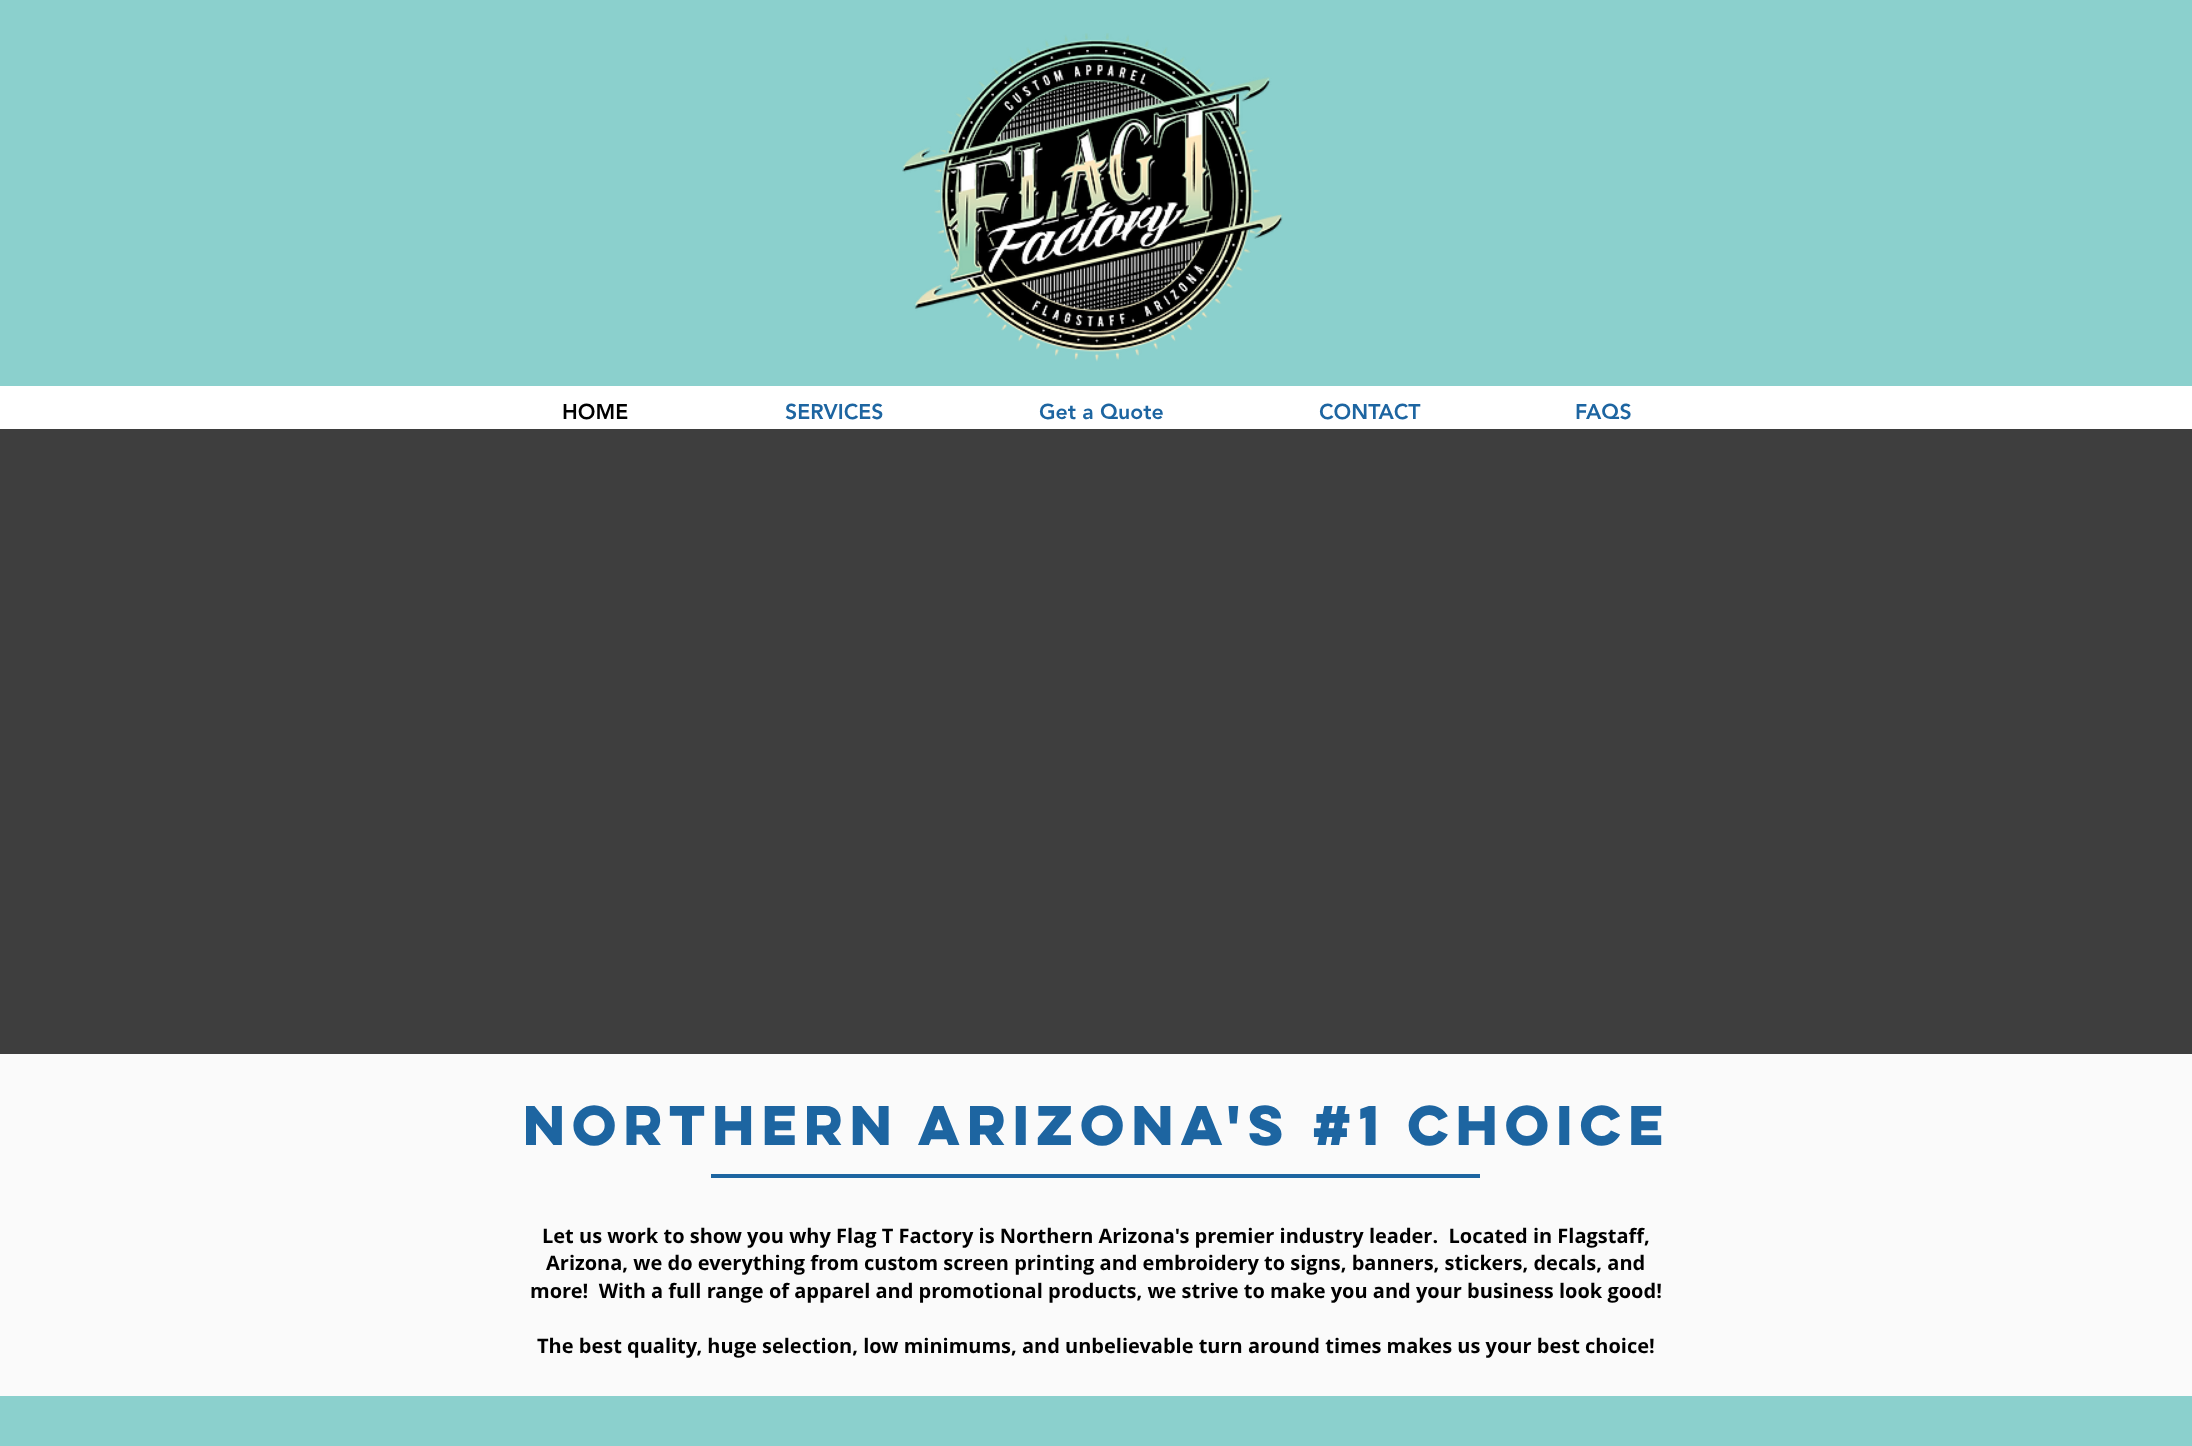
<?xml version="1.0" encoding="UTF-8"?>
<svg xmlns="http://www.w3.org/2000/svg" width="2192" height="1446">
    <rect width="100%" height="100%" fill="#8BD0CD"/>
    <image x="902" y="33" width="381" height="329" href="img_01.png"/>
    <rect x="0" y="386" width="2192" height="43" fill="#FFFFFF"/>
    <text x="562" y="419" font-family="'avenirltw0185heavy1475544'" font-size="21.25" font-weight="900" fill="#000000">HOME</text>
    <text x="785" y="419" font-family="'avenirltw0185heavy1475544'" font-size="21.25" font-weight="900" fill="#1D65A1">SERVICES</text>
    <text x="1039" y="419" font-family="'avenirltw0185heavy1475544'" font-size="21.25" font-weight="900" fill="#1D65A1">Get a Quote</text>
    <text x="1319" y="419" font-family="'avenirltw0185heavy1475544'" font-size="21.25" font-weight="900" fill="#1D65A1">CONTACT</text>
    <text x="1575" y="419" font-family="'avenirltw0185heavy1475544'" font-size="21.25" font-weight="900" fill="#1D65A1">FAQS</text>
    <rect x="0" y="429" width="2192" height="625" fill="#3E3E3E"/>
    <rect x="0" y="1054" width="2192" height="342" fill="#FAFAFA"/>
    <text x="523" y="1145" font-family="'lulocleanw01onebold'" font-size="50" font-weight="700" letter-spacing="-4" fill="#1D65A1">Northern Arizona's #1 Choice</text>
    <rect x="711" y="1174" width="769" height="4" fill="#1D65A1"/>
    <text x="542" y="1243" font-family="Open Sans" font-size="20" font-weight="700" fill="#000000" xml:space="preserve">Let us work to show you why Flag T Factory is Northern Arizona's premier industry leader.  Located in Flagstaff,</text>
    <text x="546" y="1270" font-family="Open Sans" font-size="20" font-weight="700" fill="#000000">Arizona, we do everything from custom screen printing and embroidery to signs, banners, stickers, decals, and</text>
    <text x="530" y="1298" font-family="Open Sans" font-size="20" font-weight="700" fill="#000000" xml:space="preserve">more!  With a full range of apparel and promotional products, we strive to make you and your business look good!</text>
    <text x="537" y="1353" font-family="Open Sans" font-size="20" font-weight="700" fill="#000000">The best quality, huge selection, low minimums, and unbelievable turn around times makes us your best choice!</text>
</svg>
